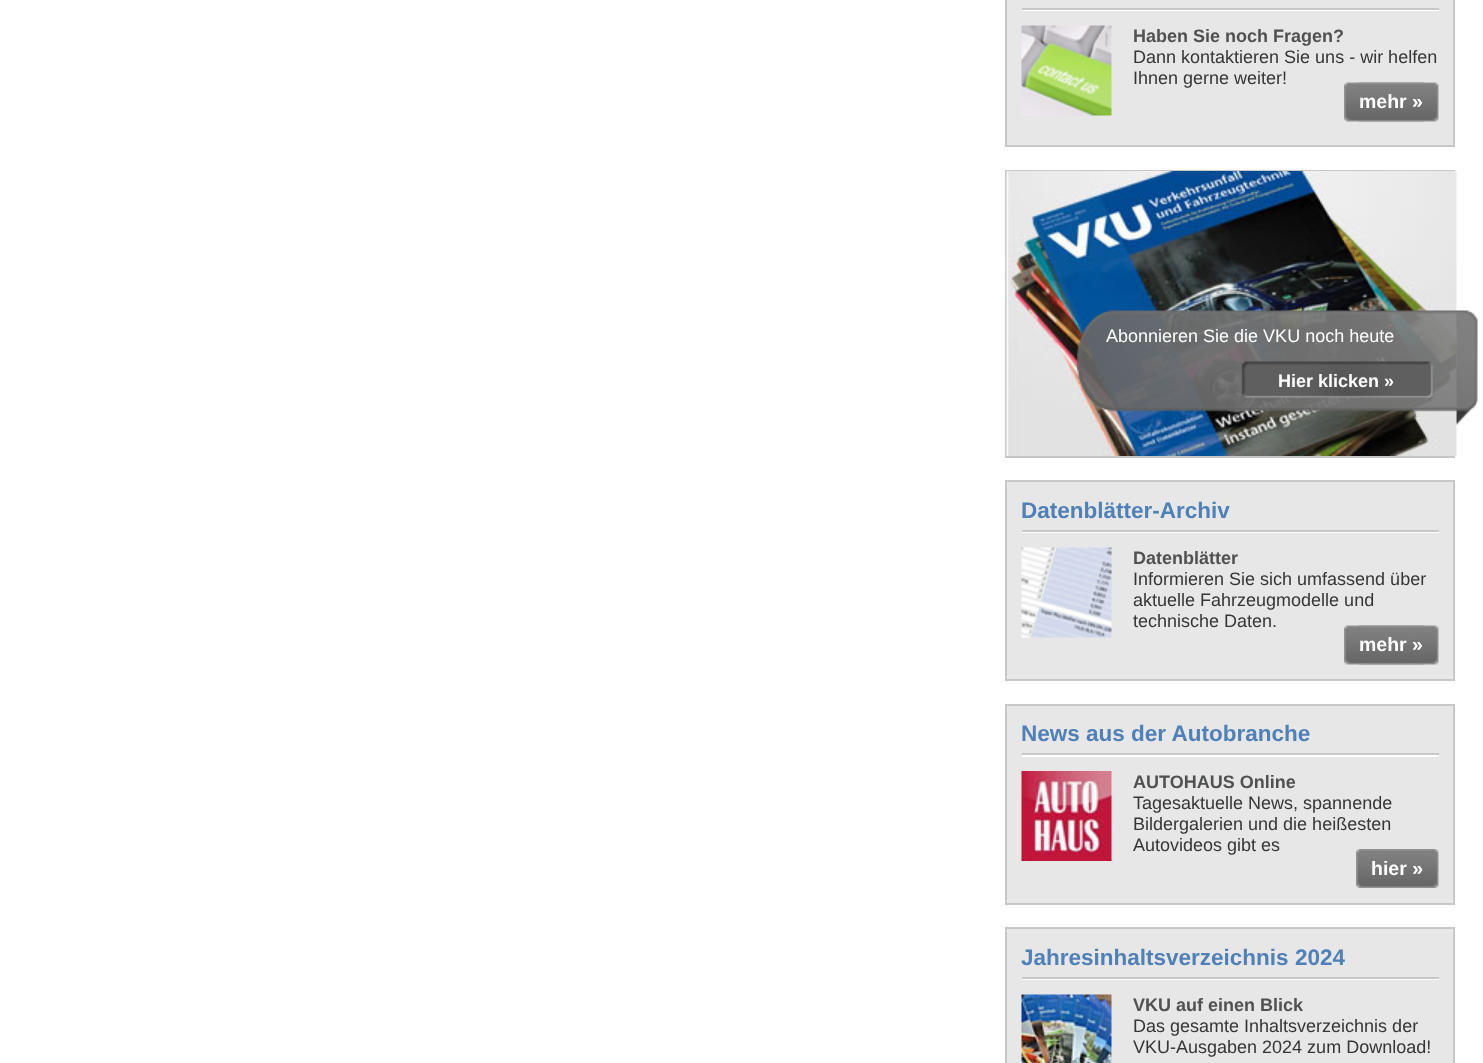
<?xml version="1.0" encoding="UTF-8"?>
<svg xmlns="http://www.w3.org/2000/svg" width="1483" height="1063">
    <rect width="100%" height="100%" fill="#FFFFFF"/>
    <rect x="1006" y="-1" width="448" height="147" fill="#E8E7E8" stroke="#C8C8CA" stroke-width="2"/>
    <rect x="1022" y="10" width="417" height="1" fill="#FFFFFF"/>
    <rect x="1022" y="8" width="417" height="2" fill="#C8C8CA"/>
    <image x="1021" y="25" width="91" height="91" href="img_01.png"/>
    <text x="1133" y="42" font-family="Liberation Sans" font-size="18" font-weight="700" fill="#505151">Haben Sie noch Fragen?</text>
    <text font-family="Liberation Sans" font-size="18" fill="#363636">
        <tspan x="1133" y="63">Dann kontaktieren Sie uns - wir helfen</tspan>
        <tspan x="1133" y="84">Ihnen gerne weiter!</tspan>
    </text>
    <image x="1344" y="82" width="80" height="40" href="img_02.png"/>
    <image x="1359" y="82" width="80" height="40" href="img_03.png"/>
    <text x="1359" y="108" font-family="Liberation Sans" font-size="19.5" font-weight="700" fill="#FFFFFF">mehr »</text>
    <rect x="1006" y="171" width="448" height="286" fill="none" stroke="#C8C8CA" stroke-width="2"/>
    <image x="1006" y="171" width="451" height="285" href="img_04.png"/>
    <image x="1077" y="310" width="401" height="115" href="img_05.png"/>
    <text x="1106" y="342" font-family="Liberation Sans" font-size="18" fill="#FFFFFF">Abonnieren Sie die VKU noch heute</text>
    <text x="1278" y="387" font-family="Liberation Sans" font-size="18" font-weight="700" fill="#FFFFFF">Hier klicken »</text>
    <rect x="1006" y="481" width="448" height="199" fill="#E8E7E8" stroke="#C8C8CA" stroke-width="2"/>
    <rect x="1022" y="532" width="417" height="1" fill="#FFFFFF"/>
    <rect x="1022" y="530" width="417" height="2" fill="#C8C8CA"/>
    <text x="1021" y="518" font-family="Liberation Sans" font-size="22.5" font-weight="700" fill="#4F80B8">Datenblätter-Archiv</text>
    <image x="1021" y="547" width="91" height="91" href="img_06.png"/>
    <text x="1133" y="564" font-family="Liberation Sans" font-size="18" font-weight="700" fill="#505151">Datenblätter</text>
    <text font-family="Liberation Sans" font-size="18" fill="#363636">
        <tspan x="1133" y="585">Informieren Sie sich umfassend über</tspan>
        <tspan x="1133" y="606">aktuelle Fahrzeugmodelle und</tspan>
        <tspan x="1133" y="627">technische Daten.</tspan>
    </text>
    <image x="1344" y="625" width="80" height="40" href="img_02.png"/>
    <image x="1359" y="625" width="80" height="40" href="img_03.png"/>
    <text x="1359" y="651" font-family="Liberation Sans" font-size="19.5" font-weight="700" fill="#FFFFFF">mehr »</text>
    <rect x="1006" y="705" width="448" height="199" fill="#E8E7E8" stroke="#C8C8CA" stroke-width="2"/>
    <rect x="1022" y="755" width="417" height="2" fill="#FFFFFF"/>
    <rect x="1022" y="753" width="417" height="2" fill="#C8C8CA"/>
    <text x="1021" y="741" font-family="Liberation Sans" font-size="22.5" font-weight="700" fill="#4F80B8">News aus der Autobranche</text>
    <image x="1021" y="771" width="91" height="90" href="img_07.png"/>
    <text x="1133" y="788" font-family="Liberation Sans" font-size="18" font-weight="700" fill="#505151">AUTOHAUS Online</text>
    <text font-family="Liberation Sans" font-size="18" fill="#363636">
        <tspan x="1133" y="809">Tagesaktuelle News, spannende</tspan>
        <tspan x="1133" y="830">Bildergalerien und die heißesten</tspan>
        <tspan x="1133" y="851">Autovideos gibt es</tspan>
    </text>
    <image x="1356" y="849" width="67" height="39" href="img_08.png"/>
    <image x="1423" y="849" width="16" height="39" href="img_09.png"/>
    <text x="1371" y="875" font-family="Liberation Sans" font-size="19.5" font-weight="700" fill="#FFFFFF">hier »</text>
    <rect x="1006" y="928" width="448" height="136" fill="#E8E7E8" stroke="#C8C8CA" stroke-width="2"/>
    <rect x="1022" y="979" width="417" height="1" fill="#FFFFFF"/>
    <rect x="1022" y="977" width="417" height="2" fill="#C8C8CA"/>
    <text x="1021" y="965" font-family="Liberation Sans" font-size="22.5" font-weight="700" fill="#4F80B8">Jahresinhaltsverzeichnis 2024</text>
    <image x="1021" y="994" width="91" height="69" href="img_10.png"/>
    <text x="1133" y="1011" font-family="Liberation Sans" font-size="18" font-weight="700" fill="#505151">VKU auf einen Blick</text>
    <text font-family="Liberation Sans" font-size="18" fill="#363636">
        <tspan x="1133" y="1032">Das gesamte Inhaltsverzeichnis der</tspan>
        <tspan x="1133" y="1053">VKU-Ausgaben 2024 zum Download!</tspan>
    </text>
</svg>
